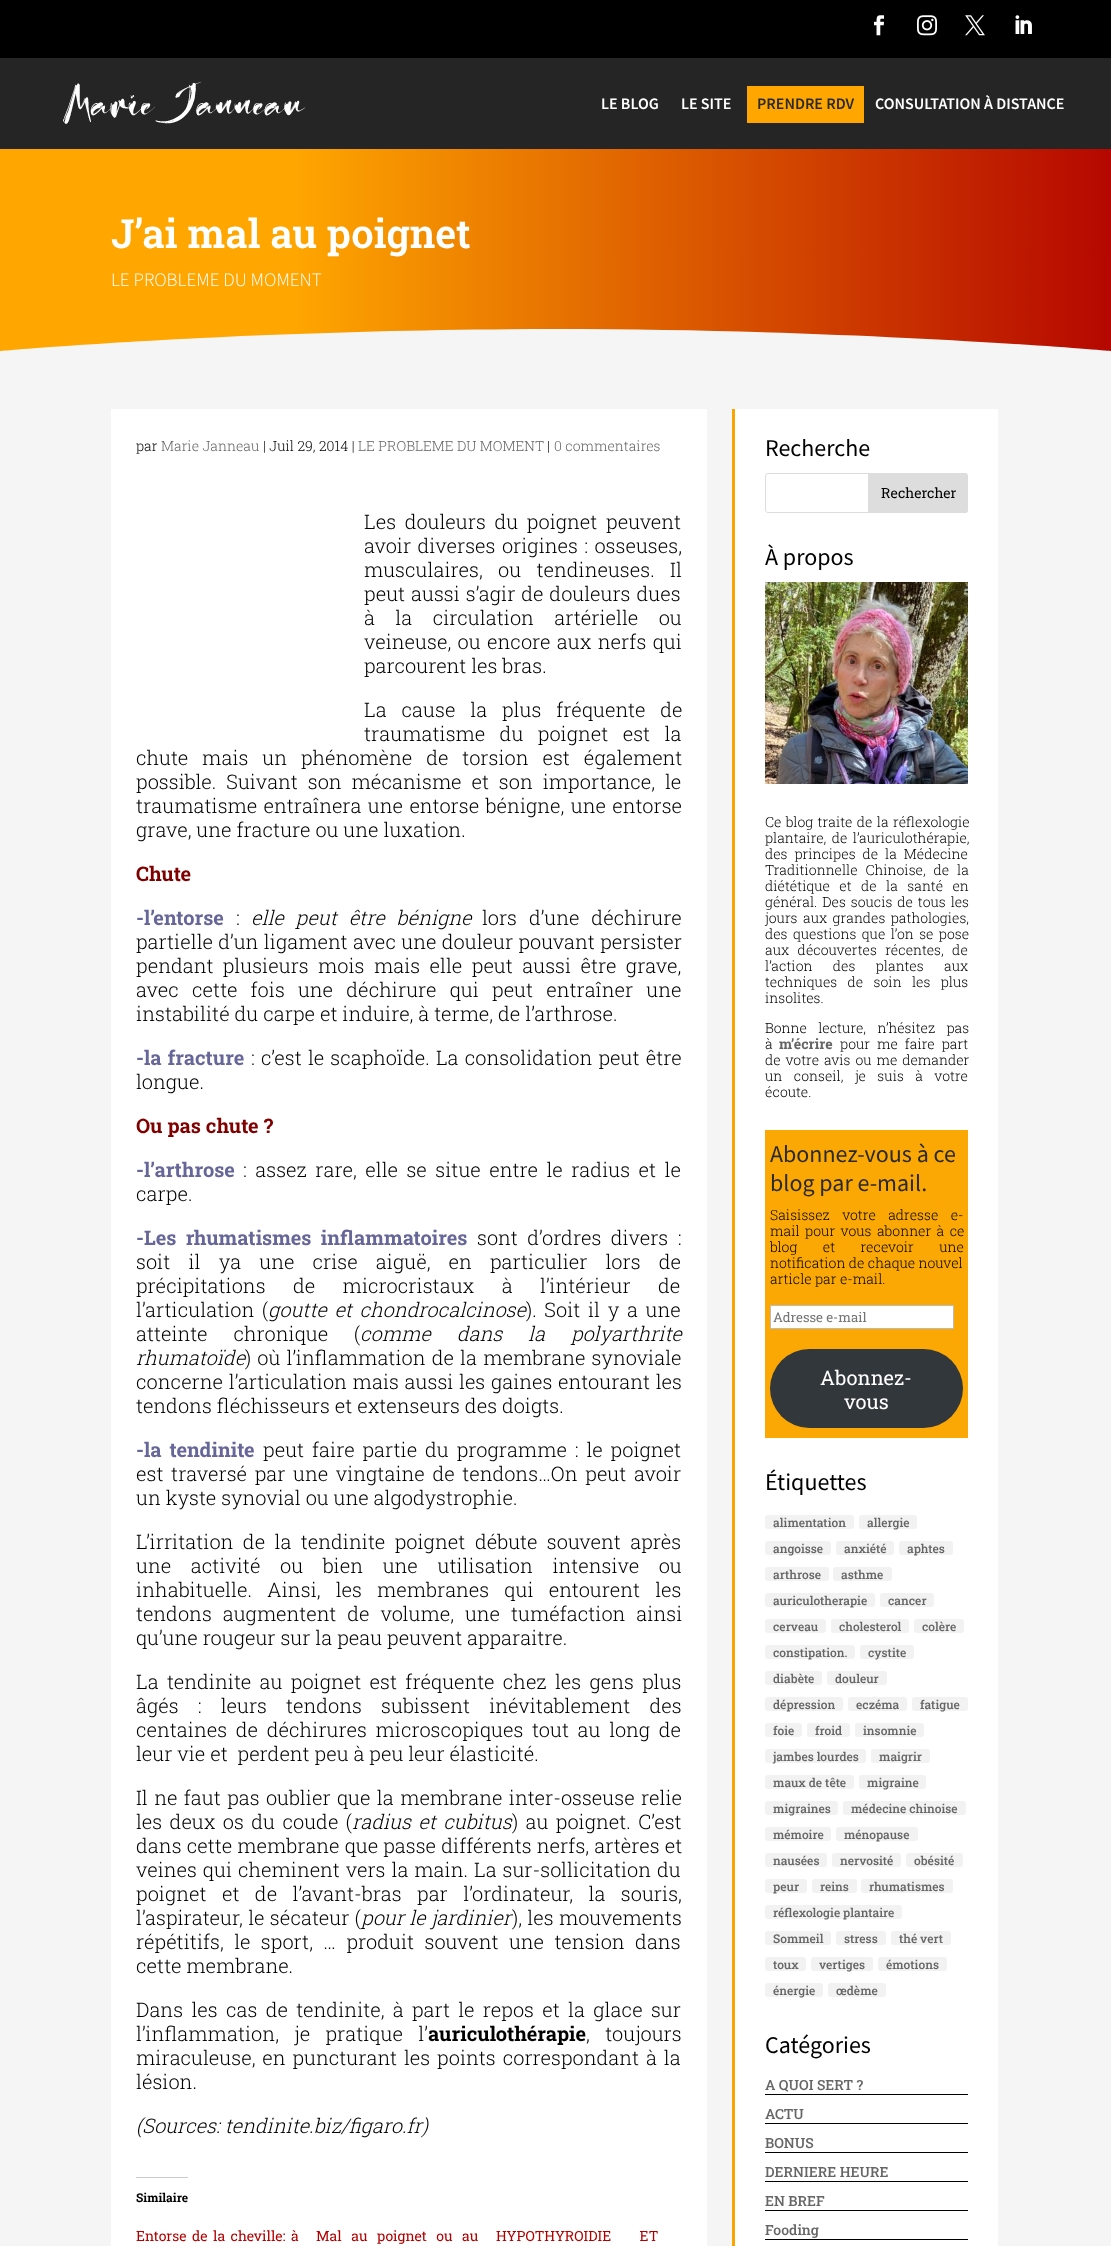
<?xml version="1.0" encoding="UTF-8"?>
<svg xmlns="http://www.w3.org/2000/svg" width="1111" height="2246">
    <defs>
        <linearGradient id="g1" gradientUnits="userSpaceOnUse" x1="0" y1="250" x2="1111" y2="250"><stop offset="0.26" stop-color="#FFA700"/><stop offset="1" stop-color="#B50700"/></linearGradient>
    </defs>
    <rect width="100%" height="100%" fill="#F5F5F5"/>
    <rect x="0" y="0" width="1111" height="58" fill="#000000"/>
    <image x="874" y="15" width="10" height="21" href="img_01.png"/>
    <image x="917" y="15" width="20" height="21" href="img_02.png"/>
    <image x="965" y="15" width="20" height="21" href="img_03.png"/>
    <image x="1015" y="15" width="17" height="19" href="img_04.png"/>
    <rect x="0" y="58" width="1111" height="91" fill="#252525"/>
    <image x="63" y="81" width="243" height="43" href="img_05.png"/>
    <text x="601" y="109" font-family="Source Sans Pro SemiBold" font-size="16" font-weight="600" fill="#FFFFFF">LE BLOG</text>
    <text x="681" y="109" font-family="Source Sans Pro SemiBold" font-size="16" font-weight="600" fill="#FFFFFF">LE SITE</text>
    <rect x="747" y="86" width="117" height="37" fill="#FFA700"/>
    <text x="757" y="109" font-family="Source Sans Pro SemiBold" font-size="16" font-weight="600" fill="#2A2A2A">PRENDRE RDV</text>
    <text x="875" y="109" font-family="Source Sans Pro SemiBold" font-size="16" font-weight="600" fill="#FFFFFF">CONSULTATION À DISTANCE</text>
    <rect x="0" y="149" width="1111" height="202" fill="url(#g1)"/>
    <text x="111" y="248" font-family="Roboto Slab" font-size="40" font-weight="600" fill="#FFFFFF">J’ai mal au poignet</text>
    <text x="111" y="286" font-family="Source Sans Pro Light" font-size="19" font-weight="300" fill="#FFFFFF">LE PROBLEME DU MOMENT</text>
    <path d="M 556 329 C 862 329 1111 351 1111 351 H 0 C 0 351 249 329 556 329 Z" fill="#F5F5F5"/>
    <rect x="111" y="409" width="596" height="1837" fill="#FFFFFF"/>
    <text x="136" y="451" font-family="Roboto Slab" font-size="14" font-weight="300" fill="#000000">par</text>
    <text x="161" y="451" font-family="Roboto Slab" font-size="14" font-weight="300" fill="#666666">Marie Janneau</text>
    <text x="263" y="451" font-family="Roboto Slab" font-size="14" font-weight="300" fill="#000000">| Juil 29, 2014 |</text>
    <text x="358" y="451" font-family="Roboto Slab" font-size="14" font-weight="300" fill="#666666">LE PROBLEME DU MOMENT</text>
    <text x="547" y="451" font-family="Roboto Slab" font-size="14" font-weight="300" fill="#000000">|</text>
    <text x="554" y="451" font-family="Roboto Slab" font-size="14" font-weight="300" fill="#666666">0 commentaires</text>
    <text font-family="Roboto Slab" font-size="20" font-weight="300" fill="#000000">
        <tspan x="364" y="529" word-spacing="3.75">Les douleurs du poignet peuvent</tspan>
        <tspan x="364" y="553" word-spacing="1.5">avoir diverses origines : osseuses,</tspan>
        <tspan x="364" y="577" word-spacing="10.5">musculaires, ou tendineuses. Il</tspan>
        <tspan x="364" y="601" word-spacing="1">peut aussi s’agir de douleurs dues</tspan>
        <tspan x="364" y="625" word-spacing="15.5">à la circulation artérielle ou</tspan>
        <tspan x="364" y="649" word-spacing="1.5">veineuse, ou encore aux nerfs qui</tspan>
        <tspan x="364" y="673">parcourent les bras.</tspan>
    </text>
    <text font-family="Roboto Slab" font-size="20" font-weight="300" fill="#000000">
        <tspan x="364" y="717" word-spacing="10">La cause la plus fréquente de</tspan>
        <tspan x="364" y="741" word-spacing="9.5">traumatisme du poignet est la</tspan>
    </text>
    <text font-family="Roboto Slab" font-size="20" font-weight="300" fill="#000000">
        <tspan x="136" y="765" word-spacing="9">chute mais un phénomène de torsion est également</tspan>
        <tspan x="136" y="789" word-spacing="5">possible. Suivant son mécanisme et son importance, le</tspan>
        <tspan x="136" y="813" word-spacing="1.5">traumatisme entraînera une entorse bénigne, une entorse</tspan>
        <tspan x="136" y="837">grave, une fracture ou une luxation.</tspan>
    </text>
    <text x="136" y="881" font-family="Roboto Slab" font-size="20" font-weight="700" fill="#800000">Chute</text>
    <text x="136" y="925" font-family="Roboto Slab" font-size="20" font-weight="700" fill="#666699">-l’entorse</text>
    <text x="236" y="925" font-family="Roboto Slab" font-size="20" font-weight="300" fill="#000000">:</text>
    <text x="251" y="925" word-spacing="7" font-family="Roboto Slab" font-size="20" font-weight="300" font-style="italic" fill="#000000">elle peut être bénigne</text>
    <text x="482" y="925" word-spacing="7" font-family="Roboto Slab" font-size="20" font-weight="300" fill="#000000">lors d’une déchirure</text>
    <text font-family="Roboto Slab" font-size="20" font-weight="300" fill="#000000">
        <tspan x="136" y="949" word-spacing="0.5">partielle d’un ligament avec une douleur pouvant persister</tspan>
        <tspan x="136" y="973" word-spacing="4.5">pendant plusieurs mois mais elle peut aussi être grave,</tspan>
        <tspan x="136" y="997" word-spacing="8.25">avec cette fois une déchirure qui peut entraîner une</tspan>
        <tspan x="136" y="1021">instabilité du carpe et induire, à terme, de l’arthrose.</tspan>
    </text>
    <text x="136" y="1065" word-spacing="1" font-family="Roboto Slab" font-size="20" font-weight="700" fill="#666699">-la fracture</text>
    <text x="251" y="1065" word-spacing="1.25" font-family="Roboto Slab" font-size="20" font-weight="300" fill="#000000">: c’est le scaphoïde. La consolidation peut être</text>
    <text x="136" y="1089" font-family="Roboto Slab" font-size="20" font-weight="300" fill="#000000">longue.</text>
    <text x="136" y="1133" font-family="Roboto Slab" font-size="20" font-weight="700" fill="#800000">Ou pas chute ?</text>
    <text x="136" y="1177" font-family="Roboto Slab" font-size="20" font-weight="700" fill="#666699">-l’arthrose</text>
    <text x="243" y="1177" word-spacing="3.6" font-family="Roboto Slab" font-size="20" font-weight="300" fill="#000000">: assez rare, elle se situe entre le radius et le</text>
    <text x="136" y="1201" font-family="Roboto Slab" font-size="20" font-weight="300" fill="#000000">carpe.</text>
    <text x="136" y="1245" word-spacing="4.5" font-family="Roboto Slab" font-size="20" font-weight="700" fill="#666699">-Les rhumatismes inflammatoires</text>
    <text x="477" y="1245" word-spacing="4.5" font-family="Roboto Slab" font-size="20" font-weight="300" fill="#000000">sont d’ordres divers :</text>
    <text font-family="Roboto Slab" font-size="20" font-weight="300" fill="#000000">
        <tspan x="136" y="1269" word-spacing="13.25">soit il ya une crise aiguë, en particulier lors de</tspan>
        <tspan x="136" y="1293" word-spacing="22.5">précipitations de microcristaux à l’intérieur de</tspan>
        <tspan x="136" y="1317" word-spacing="2.75">l’articulation (</tspan>
    </text>
    <text x="268" y="1317" word-spacing="2.75" font-family="Roboto Slab" font-size="20" font-weight="300" font-style="italic" fill="#000000">goutte et chondrocalcinose</text>
    <text x="526" y="1317" word-spacing="2.75" font-family="Roboto Slab" font-size="20" font-weight="300" fill="#000000">). Soit il y a une</text>
    <text x="136" y="1341" word-spacing="21" font-family="Roboto Slab" font-size="20" font-weight="300" fill="#000000">atteinte chronique (</text>
    <text x="360" y="1341" word-spacing="21" font-family="Roboto Slab" font-size="20" font-weight="300" font-style="italic" fill="#000000">comme dans la polyarthrite</text>
    <text x="136" y="1365" font-family="Roboto Slab" font-size="20" font-weight="300" font-style="italic" fill="#000000">rhumatoïde</text>
    <text x="245" y="1365" word-spacing="1.25" font-family="Roboto Slab" font-size="20" font-weight="300" fill="#000000">) où l’inflammation de la membrane synoviale</text>
    <text font-family="Roboto Slab" font-size="20" font-weight="300" fill="#000000">
        <tspan x="136" y="1389" word-spacing="0.75">concerne l’articulation mais aussi les gaines entourant les</tspan>
        <tspan x="136" y="1413">tendons fléchisseurs et extenseurs des doigts.</tspan>
    </text>
    <text x="136" y="1457" word-spacing="3" font-family="Roboto Slab" font-size="20" font-weight="700" fill="#666699">-la tendinite</text>
    <text x="263" y="1457" word-spacing="3" font-family="Roboto Slab" font-size="20" font-weight="300" fill="#000000">peut faire partie du programme : le poignet</text>
    <text font-family="Roboto Slab" font-size="20" font-weight="300" fill="#000000">
        <tspan x="136" y="1481" word-spacing="2.75">est traversé par une vingtaine de tendons…On peut avoir</tspan>
        <tspan x="136" y="1505">un kyste synovial ou une algodystrophie.</tspan>
    </text>
    <text x="136" y="1549" word-spacing="4.5" font-family="Roboto Slab" font-size="20" font-weight="300" fill="#000000">L’irritation de la tendinite poignet</text>
    <text x="475" y="1549" word-spacing="4.5" font-family="Roboto Slab" font-size="20" font-weight="300" fill="#000000">débute souvent après</text>
    <text font-family="Roboto Slab" font-size="20" font-weight="300" fill="#000000">
        <tspan x="136" y="1573" word-spacing="14.75">une activité ou bien une utilisation intensive ou</tspan>
        <tspan x="136" y="1597" word-spacing="10.25">inhabituelle. Ainsi, les membranes qui entourent les</tspan>
        <tspan x="136" y="1621" word-spacing="6">tendons augmentent de volume, une tuméfaction ainsi</tspan>
        <tspan x="136" y="1645">qu’une rougeur sur la peau peuvent apparaitre.</tspan>
    </text>
    <text font-family="Roboto Slab" font-size="20" font-weight="300" fill="#000000" xml:space="preserve"><tspan x="136" y="1689" word-spacing="3.4">La tendinite au poignet est fréquente chez les gens plus</tspan><tspan x="136" y="1713" word-spacing="14.25">âgés : leurs tendons subissent inévitablement des</tspan><tspan x="136" y="1737" word-spacing="3.75">centaines de déchirures microscopiques tout au long de</tspan><tspan x="136" y="1761">leur vie et  perdent peu à peu leur élasticité.</tspan></text>
    <text font-family="Roboto Slab" font-size="20" font-weight="300" fill="#000000">
        <tspan x="136" y="1805" word-spacing="1.5">Il ne faut pas oublier que la membrane inter-osseuse relie</tspan>
        <tspan x="136" y="1829" word-spacing="2.5">les deux os du coude (</tspan>
    </text>
    <text x="352" y="1829" word-spacing="2.5" font-family="Roboto Slab" font-size="20" font-weight="300" font-style="italic" fill="#000000">radius et cubitus</text>
    <text x="512" y="1829" word-spacing="2.5" font-family="Roboto Slab" font-size="20" font-weight="300" fill="#000000">) au poignet. C’est</text>
    <text font-family="Roboto Slab" font-size="20" font-weight="300" fill="#000000">
        <tspan x="136" y="1853" word-spacing="0.25">dans cette membrane que passe différents nerfs, artères et</tspan>
        <tspan x="136" y="1877" word-spacing="1">veines qui cheminent vers la main. La sur-sollicitation du</tspan>
        <tspan x="136" y="1901" word-spacing="10.5">poignet et de l’avant-bras par l’ordinateur, la souris,</tspan>
        <tspan x="136" y="1925" word-spacing="0.5">l’aspirateur, le sécateur (</tspan>
    </text>
    <text x="361" y="1925" word-spacing="0.5" font-family="Roboto Slab" font-size="20" font-weight="300" font-style="italic" fill="#000000">pour le jardinier</text>
    <text x="512" y="1925" word-spacing="0.5" font-family="Roboto Slab" font-size="20" font-weight="300" fill="#000000">), les mouvements</text>
    <text font-family="Roboto Slab" font-size="20" font-weight="300" fill="#000000">
        <tspan x="136" y="1949" word-spacing="5.5">répétitifs, le sport, … produit souvent une tension dans</tspan>
        <tspan x="136" y="1973">cette membrane.</tspan>
    </text>
    <text font-family="Roboto Slab" font-size="20" font-weight="300" fill="#000000">
        <tspan x="136" y="2017" word-spacing="3.4">Dans les cas de tendinite, à part le repos et la glace sur</tspan>
        <tspan x="136" y="2041" word-spacing="10.5">l’inflammation, je pratique l’</tspan>
    </text>
    <text x="428" y="2041" font-family="Roboto Slab" font-size="20" font-weight="700" fill="#000000">auriculothérapie</text>
    <text x="586" y="2041" word-spacing="10.5" font-family="Roboto Slab" font-size="20" font-weight="300" fill="#000000">, toujours</text>
    <text font-family="Roboto Slab" font-size="20" font-weight="300" fill="#000000">
        <tspan x="136" y="2065" word-spacing="2">miraculeuse, en puncturant les points correspondant à la</tspan>
        <tspan x="136" y="2089">lésion.</tspan>
    </text>
    <text x="136" y="2133" font-family="Roboto Slab" font-size="20" font-weight="300" font-style="italic" fill="#000000">(Sources: tendinite.biz/figaro.fr)</text>
    <rect x="136" y="2177" width="52" height="1" fill="#CCCCCC"/>
    <text x="136" y="2202" font-family="Roboto Slab" font-size="12" font-weight="700" fill="#000000">Similaire</text>
    <text x="136" y="2241" word-spacing="2" font-family="Roboto Slab" font-size="14" fill="#B20000">Entorse de la cheville: à</text>
    <text x="316" y="2241" word-spacing="6" font-family="Roboto Slab" font-size="14" fill="#B20000">Mal au poignet ou au</text>
    <text x="496" y="2241" word-spacing="25" font-family="Roboto Slab" font-size="14" fill="#B20000">HYPOTHYROIDIE ET</text>
    <rect x="735" y="409" width="263" height="1837" fill="#FFFFFF"/>
    <rect x="732" y="409" width="3" height="1837" fill="#FBA600"/>
    <text x="765" y="456" font-family="Source Sans Pro" font-size="24" fill="#000000">Recherche</text>
    <rect x="765.5" y="473.5" width="202" height="39" rx="2.5" fill="none" stroke="#DDDDDD"/>
    <path d="M 868.5 473.5 H 965 C 966.5 473.5 967.5 474.5 967.5 476 V 510 C 967.5 511.5 966.5 512.5 965 512.5 H 868.5 Z" fill="#DDDDDD" stroke="#DDDDDD"/>
    <text x="881" y="498" font-family="Roboto Slab" font-size="14" fill="#000000">Rechercher</text>
    <text x="765" y="565" font-family="Source Sans Pro" font-size="24" fill="#000000">À propos</text>
    <image x="765" y="582" width="203" height="202" href="img_06.png"/>
    <text font-family="Roboto Slab" font-size="14" font-weight="300" fill="#000000">
        <tspan x="765" y="827" word-spacing="1">Ce blog traite de la réflexologie</tspan>
        <tspan x="765" y="843" word-spacing="2">plantaire, de l’auriculothérapie,</tspan>
        <tspan x="765" y="859" word-spacing="3.5">des principes de la Médecine</tspan>
        <tspan x="765" y="875" word-spacing="4.5">Traditionnelle Chinoise, de la</tspan>
        <tspan x="765" y="891" word-spacing="6">diététique et de la santé en</tspan>
        <tspan x="765" y="907" word-spacing="1.5">général. Des soucis de tous les</tspan>
        <tspan x="765" y="923" word-spacing="2">jours aux grandes pathologies,</tspan>
        <tspan x="765" y="939" word-spacing="2">des questions que l’on se pose</tspan>
        <tspan x="765" y="955" word-spacing="5">aux découvertes récentes, de</tspan>
        <tspan x="765" y="971" word-spacing="17">l’action des plantes aux</tspan>
        <tspan x="765" y="987" word-spacing="7">techniques de soin les plus</tspan>
        <tspan x="765" y="1003">insolites.</tspan>
    </text>
    <text font-family="Roboto Slab" font-size="14" font-weight="300" fill="#000000">
        <tspan x="765" y="1033" word-spacing="8">Bonne lecture, n’hésitez pas</tspan>
        <tspan x="765" y="1049">à</tspan>
    </text>
    <text x="779" y="1049" font-family="Roboto Slab" font-size="14" font-weight="700" fill="#666666">m’écrire</text>
    <text x="840" y="1049" word-spacing="3.6" font-family="Roboto Slab" font-size="14" font-weight="300" fill="#000000">pour me faire part</text>
    <text font-family="Roboto Slab" font-size="14" font-weight="300" fill="#000000">
        <tspan x="765" y="1065" word-spacing="1.5">de votre avis ou me demander</tspan>
        <tspan x="765" y="1081" word-spacing="8">un conseil, je suis à votre</tspan>
        <tspan x="765" y="1097">écoute.</tspan>
    </text>
    <rect x="765" y="1130" width="203" height="308" fill="#FBA805"/>
    <text font-family="Source Sans Pro" font-size="24" fill="#2A2A2A">
        <tspan x="770" y="1162">Abonnez-vous à ce</tspan>
        <tspan x="770" y="1191">blog par e-mail.</tspan>
    </text>
    <text font-family="Roboto Slab" font-size="14" font-weight="300" fill="#000000">
        <tspan x="770" y="1220" word-spacing="9">Saisissez votre adresse e-</tspan>
        <tspan x="770" y="1236" word-spacing="2">mail pour vous abonner à ce</tspan>
        <tspan x="770" y="1252" word-spacing="22">blog et recevoir une</tspan>
        <tspan x="770" y="1268">notification de chaque nouvel</tspan>
        <tspan x="770" y="1284">article par e-mail.</tspan>
    </text>
    <rect x="770.5" y="1305.5" width="183" height="23" fill="#FFFFFF" stroke="#BBBBBB"/>
    <text x="773" y="1322" font-family="Roboto Slab" font-size="13.25" fill="#757575">Adresse e-mail</text>
    <rect x="770" y="1349" width="193" height="79" rx="39.5" fill="#32373C"/>
    <text x="820" y="1385" font-family="Roboto Slab" font-size="20" fill="#FFFFFF">Abonnez-</text>
    <text x="844" y="1409" font-family="Roboto Slab" font-size="20" fill="#FFFFFF">vous</text>
    <text x="765" y="1490" font-family="Source Sans Pro" font-size="24" fill="#000000">Étiquettes</text>
    <rect x="765" y="1515" width="89" height="14" rx="3" fill="#F2F2F2"/>
    <text x="773" y="1527" font-family="Roboto Slab" font-size="12" font-weight="500" fill="#666666">alimentation</text>
    <rect x="859" y="1515" width="58" height="14" rx="3" fill="#F2F2F2"/>
    <text x="867" y="1527" font-family="Roboto Slab" font-size="12" font-weight="500" fill="#666666">allergie</text>
    <rect x="765" y="1541" width="66" height="14" rx="3" fill="#F2F2F2"/>
    <text x="773" y="1553" font-family="Roboto Slab" font-size="12" font-weight="500" fill="#666666">angoisse</text>
    <rect x="836" y="1541" width="58" height="14" rx="3" fill="#F2F2F2"/>
    <text x="844" y="1553" font-family="Roboto Slab" font-size="12" font-weight="500" fill="#666666">anxiété</text>
    <rect x="899" y="1541" width="54" height="14" rx="3" fill="#F2F2F2"/>
    <text x="907" y="1553" font-family="Roboto Slab" font-size="12" font-weight="500" fill="#666666">aphtes</text>
    <rect x="765" y="1567" width="64" height="14" rx="3" fill="#F2F2F2"/>
    <text x="773" y="1579" font-family="Roboto Slab" font-size="12" font-weight="500" fill="#666666">arthrose</text>
    <rect x="833" y="1567" width="59" height="14" rx="3" fill="#F2F2F2"/>
    <text x="841" y="1579" font-family="Roboto Slab" font-size="12" font-weight="500" fill="#666666">asthme</text>
    <rect x="765" y="1593" width="110" height="14" rx="3" fill="#F2F2F2"/>
    <text x="773" y="1605" font-family="Roboto Slab" font-size="12" font-weight="500" fill="#666666">auriculotherapie</text>
    <rect x="880" y="1593" width="54" height="14" rx="3" fill="#F2F2F2"/>
    <text x="888" y="1605" font-family="Roboto Slab" font-size="12" font-weight="500" fill="#666666">cancer</text>
    <rect x="765" y="1619" width="61" height="14" rx="3" fill="#F2F2F2"/>
    <text x="773" y="1631" font-family="Roboto Slab" font-size="12" font-weight="500" fill="#666666">cerveau</text>
    <rect x="831" y="1619" width="78" height="14" rx="3" fill="#F2F2F2"/>
    <text x="839" y="1631" font-family="Roboto Slab" font-size="12" font-weight="500" fill="#666666">cholesterol</text>
    <rect x="914" y="1619" width="50" height="14" rx="3" fill="#F2F2F2"/>
    <text x="922" y="1631" font-family="Roboto Slab" font-size="12" font-weight="500" fill="#666666">colère</text>
    <rect x="765" y="1645" width="90" height="14" rx="3" fill="#F2F2F2"/>
    <text x="773" y="1657" font-family="Roboto Slab" font-size="12" font-weight="500" fill="#666666">constipation.</text>
    <rect x="860" y="1645" width="54" height="14" rx="3" fill="#F2F2F2"/>
    <text x="868" y="1657" font-family="Roboto Slab" font-size="12" font-weight="500" fill="#666666">cystite</text>
    <rect x="765" y="1671" width="57" height="14" rx="3" fill="#F2F2F2"/>
    <text x="773" y="1683" font-family="Roboto Slab" font-size="12" font-weight="500" fill="#666666">diabète</text>
    <rect x="827" y="1671" width="60" height="14" rx="3" fill="#F2F2F2"/>
    <text x="835" y="1683" font-family="Roboto Slab" font-size="12" font-weight="500" fill="#666666">douleur</text>
    <rect x="765" y="1697" width="78" height="14" rx="3" fill="#F2F2F2"/>
    <text x="773" y="1709" font-family="Roboto Slab" font-size="12" font-weight="500" fill="#666666">dépression</text>
    <rect x="848" y="1697" width="59" height="14" rx="3" fill="#F2F2F2"/>
    <text x="856" y="1709" font-family="Roboto Slab" font-size="12" font-weight="500" fill="#666666">eczéma</text>
    <rect x="912" y="1697" width="56" height="14" rx="3" fill="#F2F2F2"/>
    <text x="920" y="1709" font-family="Roboto Slab" font-size="12" font-weight="500" fill="#666666">fatigue</text>
    <rect x="765" y="1723" width="37" height="14" rx="3" fill="#F2F2F2"/>
    <text x="773" y="1735" font-family="Roboto Slab" font-size="12" font-weight="500" fill="#666666">foie</text>
    <rect x="807" y="1723" width="43" height="14" rx="3" fill="#F2F2F2"/>
    <text x="815" y="1735" font-family="Roboto Slab" font-size="12" font-weight="500" fill="#666666">froid</text>
    <rect x="855" y="1723" width="69" height="14" rx="3" fill="#F2F2F2"/>
    <text x="863" y="1735" font-family="Roboto Slab" font-size="12" font-weight="500" fill="#666666">insomnie</text>
    <rect x="765" y="1749" width="101" height="14" rx="3" fill="#F2F2F2"/>
    <text x="773" y="1761" font-family="Roboto Slab" font-size="12" font-weight="500" fill="#666666">jambes lourdes</text>
    <rect x="871" y="1749" width="59" height="14" rx="3" fill="#F2F2F2"/>
    <text x="879" y="1761" font-family="Roboto Slab" font-size="12" font-weight="500" fill="#666666">maigrir</text>
    <rect x="765" y="1775" width="89" height="14" rx="3" fill="#F2F2F2"/>
    <text x="773" y="1787" font-family="Roboto Slab" font-size="12" font-weight="500" fill="#666666">maux de tête</text>
    <rect x="859" y="1775" width="67" height="14" rx="3" fill="#F2F2F2"/>
    <text x="867" y="1787" font-family="Roboto Slab" font-size="12" font-weight="500" fill="#666666">migraine</text>
    <rect x="765" y="1801" width="73" height="14" rx="3" fill="#F2F2F2"/>
    <text x="773" y="1813" font-family="Roboto Slab" font-size="12" font-weight="500" fill="#666666">migraines</text>
    <rect x="843" y="1801" width="123" height="14" rx="3" fill="#F2F2F2"/>
    <text x="851" y="1813" font-family="Roboto Slab" font-size="12" font-weight="500" fill="#666666">médecine chinoise</text>
    <rect x="765" y="1827" width="66" height="14" rx="3" fill="#F2F2F2"/>
    <text x="773" y="1839" font-family="Roboto Slab" font-size="12" font-weight="500" fill="#666666">mémoire</text>
    <rect x="836" y="1827" width="82" height="14" rx="3" fill="#F2F2F2"/>
    <text x="844" y="1839" font-family="Roboto Slab" font-size="12" font-weight="500" fill="#666666">ménopause</text>
    <rect x="765" y="1853" width="62" height="14" rx="3" fill="#F2F2F2"/>
    <text x="773" y="1865" font-family="Roboto Slab" font-size="12" font-weight="500" fill="#666666">nausées</text>
    <rect x="832" y="1853" width="69" height="14" rx="3" fill="#F2F2F2"/>
    <text x="840" y="1865" font-family="Roboto Slab" font-size="12" font-weight="500" fill="#666666">nervosité</text>
    <rect x="906" y="1853" width="57" height="14" rx="3" fill="#F2F2F2"/>
    <text x="914" y="1865" font-family="Roboto Slab" font-size="12" font-weight="500" fill="#666666">obésité</text>
    <rect x="765" y="1879" width="42" height="14" rx="3" fill="#F2F2F2"/>
    <text x="773" y="1891" font-family="Roboto Slab" font-size="12" font-weight="500" fill="#666666">peur</text>
    <rect x="812" y="1879" width="45" height="14" rx="3" fill="#F2F2F2"/>
    <text x="820" y="1891" font-family="Roboto Slab" font-size="12" font-weight="500" fill="#666666">reins</text>
    <rect x="861" y="1879" width="92" height="14" rx="3" fill="#F2F2F2"/>
    <text x="869" y="1891" font-family="Roboto Slab" font-size="12" font-weight="500" fill="#666666">rhumatismes</text>
    <rect x="765" y="1905" width="137" height="14" rx="3" fill="#F2F2F2"/>
    <text x="773" y="1917" font-family="Roboto Slab" font-size="12" font-weight="500" fill="#666666">réflexologie plantaire</text>
    <rect x="765" y="1931" width="66" height="14" rx="3" fill="#F2F2F2"/>
    <text x="773" y="1943" font-family="Roboto Slab" font-size="12" font-weight="500" fill="#666666">Sommeil</text>
    <rect x="836" y="1931" width="50" height="14" rx="3" fill="#F2F2F2"/>
    <text x="844" y="1943" font-family="Roboto Slab" font-size="12" font-weight="500" fill="#666666">stress</text>
    <rect x="891" y="1931" width="60" height="14" rx="3" fill="#F2F2F2"/>
    <text x="899" y="1943" font-family="Roboto Slab" font-size="12" font-weight="500" fill="#666666">thé vert</text>
    <rect x="765" y="1957" width="41" height="14" rx="3" fill="#F2F2F2"/>
    <text x="773" y="1969" font-family="Roboto Slab" font-size="12" font-weight="500" fill="#666666">toux</text>
    <rect x="811" y="1957" width="62" height="14" rx="3" fill="#F2F2F2"/>
    <text x="819" y="1969" font-family="Roboto Slab" font-size="12" font-weight="500" fill="#666666">vertiges</text>
    <rect x="878" y="1957" width="69" height="14" rx="3" fill="#F2F2F2"/>
    <text x="886" y="1969" font-family="Roboto Slab" font-size="12" font-weight="500" fill="#666666">émotions</text>
    <rect x="765" y="1983" width="58" height="14" rx="3" fill="#F2F2F2"/>
    <text x="773" y="1995" font-family="Roboto Slab" font-size="12" font-weight="500" fill="#666666">énergie</text>
    <rect x="828" y="1983" width="58" height="14" rx="3" fill="#F2F2F2"/>
    <text x="836" y="1995" font-family="Roboto Slab" font-size="12" font-weight="500" fill="#666666">œdème</text>
    <text x="765" y="2053" font-family="Source Sans Pro" font-size="24" fill="#000000">Catégories</text>
    <rect x="765" y="2094" width="203" height="1" fill="#000000"/>
    <text x="765" y="2090" font-family="Roboto Slab" font-size="14" font-weight="500" fill="#666666">A QUOI SERT ?</text>
    <rect x="765" y="2123" width="203" height="1" fill="#000000"/>
    <text x="765" y="2119" font-family="Roboto Slab" font-size="14" font-weight="500" fill="#666666">ACTU</text>
    <rect x="765" y="2152" width="203" height="1" fill="#000000"/>
    <text x="765" y="2148" font-family="Roboto Slab" font-size="14" font-weight="500" fill="#666666">BONUS</text>
    <rect x="765" y="2181" width="203" height="1" fill="#000000"/>
    <text x="765" y="2177" font-family="Roboto Slab" font-size="14" font-weight="500" fill="#666666">DERNIERE HEURE</text>
    <rect x="765" y="2210" width="203" height="1" fill="#000000"/>
    <text x="765" y="2206" font-family="Roboto Slab" font-size="14" font-weight="500" fill="#666666">EN BREF</text>
    <rect x="765" y="2239" width="203" height="1" fill="#000000"/>
    <text x="765" y="2235" font-family="Roboto Slab" font-size="14" font-weight="500" fill="#666666">Fooding</text>
</svg>
